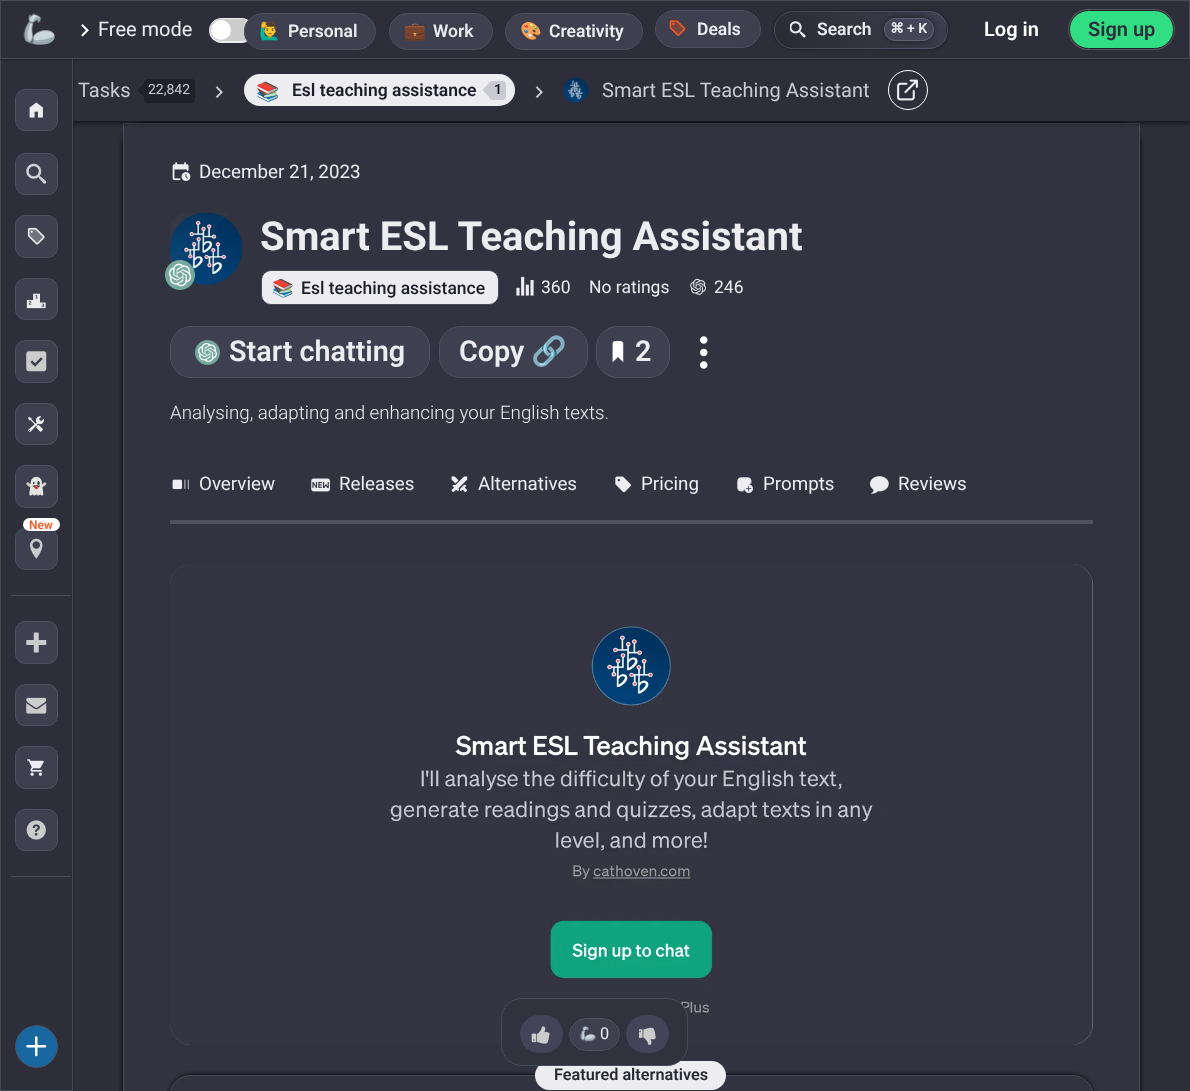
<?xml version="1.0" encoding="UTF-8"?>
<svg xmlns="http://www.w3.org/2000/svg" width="1190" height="1091">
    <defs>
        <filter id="blur1" x="-50%" y="-200%" width="200%" height="500%"><feGaussianBlur stdDeviation="2.5"/></filter>
        <filter id="blur2" x="-50%" y="-200%" width="200%" height="500%"><feGaussianBlur stdDeviation="1"/></filter>
        <filter id="blur3" x="-50%" y="-200%" width="200%" height="500%"><feGaussianBlur stdDeviation="0.5"/></filter>
        <filter id="blur4" x="-50%" y="-200%" width="200%" height="500%"><feGaussianBlur stdDeviation="2"/></filter>
        <clipPath id="clip1"><rect x="774" y="11" width="174" height="38" rx="19"/></clipPath>
        <linearGradient id="g1" gradientUnits="userSpaceOnUse" x1="808" y1="47" x2="912" y2="-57"><stop offset="0" stop-color="#292932"/><stop offset="1" stop-color="#3E3F4F"/></linearGradient>
        <linearGradient id="g2" gradientUnits="userSpaceOnUse" x1="637" y1="82" x2="740" y2="-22"><stop offset="0" stop-color="#292932"/><stop offset="1" stop-color="#3E3F4F"/></linearGradient>
        <linearGradient id="g3" gradientUnits="userSpaceOnUse" x1="808" y1="82" x2="912" y2="-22"><stop offset="0" stop-color="#292932"/><stop offset="1" stop-color="#3E3F4F"/></linearGradient>
        <linearGradient id="g4" gradientUnits="userSpaceOnUse" x1="980" y1="82" x2="1083" y2="-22"><stop offset="0" stop-color="#292932"/><stop offset="1" stop-color="#3E3F4F"/></linearGradient>
        <linearGradient id="g5" gradientUnits="userSpaceOnUse" x1="808" y1="117" x2="912" y2="13"><stop offset="0" stop-color="#292932"/><stop offset="1" stop-color="#3E3F4F"/></linearGradient>
        <linearGradient id="g6" gradientUnits="userSpaceOnUse" x1="199" y1="267" x2="195" y2="142"><stop offset="0" stop-color="#FFFFFF" stop-opacity="0.03"/><stop offset="1" stop-color="#FFFFFF" stop-opacity="0"/></linearGradient>
    </defs>
    <rect width="100%" height="100%" fill="#2D2E3A"/>
    <rect x="123" y="123" width="1017" height="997" rx="21" fill="#0A0A10" filter="url(#blur1)"/>
    <rect x="123.5" y="123.5" width="1016" height="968" fill="#313340" stroke="#4A4A5C"/>
    <rect x="0" y="60" width="1190" height="63" fill="#000000" fill-opacity="0.62" filter="url(#blur1)"/>
    <rect x="73" y="59" width="1117" height="62" fill="#2D2E39"/>
    <rect x="-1" y="46" width="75" height="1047" fill="#000000" fill-opacity="0.27" filter="url(#blur2)"/>
    <rect x="1" y="59" width="71" height="1031" fill="#2D2E3A"/>
    <rect x="0.5" y="48.5" width="72" height="1042" fill="none" stroke="#444C5B"/>
    <rect x="-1" y="-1" width="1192" height="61" fill="#000000" fill-opacity="0.27" filter="url(#blur2)"/>
    <rect x="0.5" y="0.5" width="1189" height="58" fill="#2D2E3A" stroke="#444C5B"/>
    <image x="23" y="13" width="32" height="32" href="img_01.png"/>
    <image x="81" y="24" width="8" height="13" href="img_02.png"/>
    <text x="98" y="36" font-family="Roboto" font-size="20" fill="#ECECF1">Free mode</text>
    <rect x="209" y="18" width="45" height="25" rx="12.5" fill="#ECECF1" filter="url(#blur3)"/>
    <rect x="210" y="19" width="43" height="22" rx="11" fill="#CCCCCC"/>
    <circle cx="221" cy="30" r="10" fill="#FFFFFF"/>
    <rect x="244" y="13" width="132" height="37" rx="18.5" fill="#000000" fill-opacity="0.55" filter="url(#blur3)"/>
    <rect x="244.5" y="13.5" width="131" height="36" rx="18" fill="#3E3F4F" stroke="#4C5462"/>
    <text x="259" y="37" font-family="Noto Color Emoji" font-size="17.5" font-weight="700" fill="#ECECF1">🙋‍♂️</text>
    <text x="288" y="37" font-family="Roboto" font-size="17.5" font-weight="600" fill="#ECECF1">Personal</text>
    <rect x="389" y="13" width="104" height="37" rx="18.5" fill="#000000" fill-opacity="0.55" filter="url(#blur3)"/>
    <rect x="389.5" y="13.5" width="103" height="36" rx="18" fill="#3E3F4F" stroke="#4C5462"/>
    <text x="404" y="37" font-family="Noto Color Emoji" font-size="17.5" font-weight="700" fill="#ECECF1">💼</text>
    <text x="433" y="37" font-family="Roboto" font-size="17.5" font-weight="600" fill="#ECECF1">Work</text>
    <rect x="505" y="13" width="138" height="37" rx="18.5" fill="#000000" fill-opacity="0.55" filter="url(#blur3)"/>
    <rect x="505.5" y="13.5" width="137" height="36" rx="18" fill="#3E3F4F" stroke="#4C5462"/>
    <text x="520" y="37" font-family="Noto Color Emoji" font-size="17.5" font-weight="700" fill="#ECECF1">🎨</text>
    <text x="549" y="37" font-family="Roboto" font-size="17.5" font-weight="600" fill="#ECECF1">Creativity</text>
    <rect x="655" y="10" width="106" height="38" rx="19" fill="#000000" fill-opacity="0.55" filter="url(#blur3)"/>
    <rect x="655.5" y="10.5" width="105" height="37" rx="18.5" fill="#3E3F4F" stroke="#4C5462"/>
    <image x="669" y="20" width="17" height="16" href="img_03.png"/>
    <text x="697" y="35" font-family="Roboto" font-size="17.5" font-weight="600" fill="#ECECF1">Deals</text>
    <rect x="774" y="11" width="174" height="38" rx="19" fill="#000000" fill-opacity="0.4" filter="url(#blur4)"/>
    <g clip-path="url(#clip1)">
        <rect x="784" y="11" width="162" height="2" fill="url(#g1)"/>
        <rect x="774" y="24" width="1" height="12" fill="url(#g2)"/>
        <rect x="775" y="13" width="171" height="35" fill="url(#g3)"/>
        <rect x="946" y="13" width="2" height="26" fill="url(#g4)"/>
        <rect x="787" y="48" width="148" height="1" fill="url(#g5)"/>
    </g>
    <rect x="774.5" y="11.5" width="173" height="37" rx="18.5" fill="none" stroke="#898BAF" stroke-opacity="0.29"/>
    <image x="790" y="21" width="16" height="17" href="img_04.png"/>
    <text x="817" y="35" font-family="Roboto" font-size="17.5" font-weight="600" fill="#ECECF1">Search</text>
    <rect x="883" y="16" width="52" height="27" rx="13.5" fill="#000000" fill-opacity="0.33" filter="url(#blur4)"/>
    <rect x="884" y="18" width="50" height="23" rx="11.5" fill="#444556"/>
    <rect x="884.5" y="18.5" width="49" height="22" rx="11" fill="none" stroke="#FFFFFF" stroke-opacity="0.16"/>
    <text x="890" y="33" font-family="DejaVu Sans" font-size="14" font-weight="700" fill="#ECECF1">⌘</text>
    <text x="907" y="33" font-family="Roboto" font-size="14" font-weight="600" fill="#ECECF1">+ K</text>
    <text x="984" y="36" font-family="Roboto" font-size="20" font-weight="600" fill="#FFFFFF">Log in</text>
    <rect x="1068" y="9" width="107" height="41" rx="20.5" fill="#FFFFFF" fill-opacity="0.19" filter="url(#blur3)"/>
    <rect x="1069.5" y="10.5" width="104" height="38" rx="19" fill="#32DE84" stroke="#1E1E26"/>
    <text x="1088" y="36" font-family="Roboto" font-size="20" font-weight="600" fill="#2D2E39">Sign up</text>
    <rect x="15" y="89" width="43" height="42" rx="10" fill="#000000" fill-opacity="0.33" filter="url(#blur3)"/>
    <rect x="15.5" y="89.5" width="42" height="41" rx="9.5" fill="#3E3F4F" stroke="#4C5462"/>
    <image x="29" y="102" width="14" height="16" href="img_05.png"/>
    <rect x="15" y="153" width="43" height="42" rx="10" fill="#000000" fill-opacity="0.33" filter="url(#blur3)"/>
    <rect x="15.5" y="153.5" width="42" height="41" rx="9.5" fill="#3E3F4F" stroke="#4C5462"/>
    <image x="26" y="163" width="21" height="21" href="img_06.png"/>
    <rect x="15" y="215" width="43" height="43" rx="10" fill="#000000" fill-opacity="0.33" filter="url(#blur3)"/>
    <rect x="15.5" y="215.5" width="42" height="42" rx="9.5" fill="#3E3F4F" stroke="#4C5462"/>
    <image x="27" y="227" width="18" height="18" href="img_07.png"/>
    <rect x="15" y="278" width="43" height="42" rx="10" fill="#000000" fill-opacity="0.33" filter="url(#blur3)"/>
    <rect x="15.5" y="278.5" width="42" height="41" rx="9.5" fill="#3E3F4F" stroke="#4C5462"/>
    <image x="26" y="293" width="20" height="16" href="img_08.png"/>
    <rect x="15" y="340" width="43" height="43" rx="10" fill="#000000" fill-opacity="0.33" filter="url(#blur3)"/>
    <rect x="15.5" y="340.5" width="42" height="42" rx="9.5" fill="#3E3F4F" stroke="#4C5462"/>
    <image x="26" y="351" width="21" height="21" href="img_09.png"/>
    <rect x="15" y="403" width="43" height="42" rx="10" fill="#000000" fill-opacity="0.33" filter="url(#blur3)"/>
    <rect x="15.5" y="403.5" width="42" height="41" rx="9.5" fill="#3E3F4F" stroke="#4C5462"/>
    <image x="28" y="416" width="16" height="16" href="img_10.png"/>
    <rect x="15" y="465" width="43" height="43" rx="10" fill="#000000" fill-opacity="0.33" filter="url(#blur3)"/>
    <rect x="15.5" y="465.5" width="42" height="42" rx="9.5" fill="#3E3F4F" stroke="#4C5462"/>
    <image x="26" y="476" width="21" height="20" href="img_11.png"/>
    <rect x="15" y="528" width="43" height="42" rx="10" fill="#000000" fill-opacity="0.33" filter="url(#blur3)"/>
    <rect x="15.5" y="528.5" width="42" height="41" rx="9.5" fill="#3E3F4F" stroke="#4C5462"/>
    <rect x="23" y="518" width="37" height="13" rx="6.5" fill="#FFFFFF"/>
    <text x="29" y="529" font-family="Roboto" font-size="12" font-weight="600" fill="#FF5722">New</text>
    <image x="30" y="538" width="13" height="21" href="img_12.png"/>
    <rect x="11" y="595" width="60" height="1" fill="#4A4A5B"/>
    <rect x="15" y="621" width="43" height="43" rx="10" fill="#000000" fill-opacity="0.33" filter="url(#blur3)"/>
    <rect x="15.5" y="621.5" width="42" height="42" rx="9.5" fill="#3E3F4F" stroke="#4C5462"/>
    <image x="26" y="632" width="21" height="21" href="img_13.png"/>
    <rect x="15" y="684" width="43" height="42" rx="10" fill="#000000" fill-opacity="0.33" filter="url(#blur3)"/>
    <rect x="15.5" y="684.5" width="42" height="41" rx="9.5" fill="#3E3F4F" stroke="#4C5462"/>
    <image x="26" y="697" width="21" height="17" href="img_14.png"/>
    <rect x="15" y="746" width="43" height="43" rx="10" fill="#000000" fill-opacity="0.33" filter="url(#blur3)"/>
    <rect x="15.5" y="746.5" width="42" height="42" rx="9.5" fill="#3E3F4F" stroke="#4C5462"/>
    <image x="27" y="759" width="17" height="17" href="img_15.png"/>
    <rect x="15" y="809" width="43" height="42" rx="10" fill="#000000" fill-opacity="0.33" filter="url(#blur3)"/>
    <rect x="15.5" y="809.5" width="42" height="41" rx="9.5" fill="#3E3F4F" stroke="#4C5462"/>
    <image x="26" y="820" width="20" height="20" href="img_16.png"/>
    <rect x="11" y="876" width="60" height="1" fill="#4A4A5B"/>
    <rect x="15" y="1025" width="43" height="43" rx="21.5" fill="#000000" fill-opacity="0.33" filter="url(#blur3)"/>
    <circle cx="36.5" cy="1046.5" r="21" fill="#1867A1" stroke="#4C5462"/>
    <image x="26" y="1036" width="21" height="21" href="img_17.png"/>
    <text x="78" y="97" font-family="Roboto" font-size="20" fill="#CACAD2">Tasks</text>
    <rect x="144" y="79" width="51" height="24" rx="4" fill="#202128"/>
    <path d="M 146 81 V 99 L 137.5 90 Z" fill="#202128"/>
    <text x="148" y="94" font-family="Roboto" font-size="14" fill="#CACAD2">22,842</text>
    <image x="215" y="86" width="8" height="12" href="img_18.png"/>
    <rect x="244" y="74" width="271" height="32" rx="16" fill="#ECECF1"/>
    <text x="256" y="98" font-family="Noto Color Emoji" font-size="18.75" font-weight="700" fill="#1B1C27">📚</text>
    <text x="292" y="96" font-family="Roboto" font-size="17.5" font-weight="600" fill="#1B1C27">Esl teaching assistance</text>
    <rect x="489" y="81" width="17" height="19" rx="4" fill="#CACAD2"/>
    <path d="M 491 81 V 99 L 482.5 90 Z" fill="#CACAD2"/>
    <text x="494" y="94" font-family="Roboto" font-size="14" font-weight="600" fill="#1B1C27">1</text>
    <image x="535" y="86" width="8" height="12" href="img_18.png"/>
    <image x="563" y="77" width="26" height="26" href="img_19.png"/>
    <text x="602" y="97" font-family="Roboto" font-size="20" fill="#CACAD2">Smart ESL Teaching Assistant</text>
    <circle cx="908" cy="90" r="19.5" fill="none" stroke="#FFFFFF"/>
    <image x="897" y="79" width="21" height="22" href="img_20.png"/>
    <image x="172" y="162" width="19" height="19" href="img_21.png"/>
    <text x="199" y="178" font-family="Roboto" font-size="18.75" fill="#ECECF1">December 21, 2023</text>
    <image x="170" y="212" width="72" height="73" href="img_22.png"/>
    <image x="165" y="260" width="30" height="30" href="img_23.png"/>
    <path d="M 185 213 H 228 L 178 267 L 170 260 V 228 C 170 220 177 213 185 213 Z" fill="url(#g6)"/>
    <text x="260" y="250" font-family="Roboto" font-size="40" font-weight="700" fill="#ECECF1">Smart ESL Teaching Assistant</text>
    <rect x="261" y="270" width="238" height="35" rx="10" fill="#000000" fill-opacity="0.55" filter="url(#blur3)"/>
    <rect x="261.5" y="270.5" width="237" height="34" rx="9.5" fill="#ECECF1" stroke="#444C5B"/>
    <text x="272" y="294" font-family="Noto Color Emoji" font-size="17.5" fill="#1B1C27">📚</text>
    <text x="301" y="294" font-family="Roboto" font-size="17.5" font-weight="500" fill="#1B1C27">Esl teaching assistance</text>
    <image x="516" y="276" width="18" height="20" href="img_24.png"/>
    <text x="541" y="293" font-family="Roboto" font-size="17.5" fill="#ECECF1">360</text>
    <text x="589" y="293" font-family="Roboto" font-size="17.5" fill="#ECECF1">No ratings</text>
    <image x="690" y="278" width="16" height="17" href="img_25.png"/>
    <text x="714" y="293" font-family="Roboto" font-size="17.5" fill="#ECECF1">246</text>
    <rect x="170" y="326" width="260" height="52" rx="21" fill="#000000" fill-opacity="0.27" filter="url(#blur3)"/>
    <rect x="170.5" y="326.5" width="259" height="51" rx="20.5" fill="#3E3F4F" stroke="#4C5462"/>
    <image x="195" y="340" width="25" height="25" href="img_26.png"/>
    <text x="229" y="361" font-family="Roboto" font-size="28.75" font-weight="600" fill="#ECECF1">Start chatting</text>
    <rect x="439" y="326" width="149" height="52" rx="21" fill="#000000" fill-opacity="0.27" filter="url(#blur3)"/>
    <rect x="439.5" y="326.5" width="148" height="51" rx="20.5" fill="#3E3F4F" stroke="#4C5462"/>
    <text x="459" y="361" font-family="Roboto" font-size="28.75" font-weight="600" fill="#ECECF1">Copy</text>
    <text x="531" y="361" font-family="Noto Color Emoji" font-size="28.75" font-weight="700" fill="#ECECF1">🔗</text>
    <rect x="596" y="326" width="74" height="52" rx="21" fill="#000000" fill-opacity="0.27" filter="url(#blur3)"/>
    <rect x="596.5" y="326.5" width="73" height="51" rx="20.5" fill="#3E3F4F" stroke="#4C5462"/>
    <image x="612" y="341" width="12" height="22" href="img_27.png"/>
    <text x="635" y="361" font-family="Roboto" font-size="28.75" font-weight="600" fill="#ECECF1">2</text>
    <image x="700" y="336" width="8" height="33" href="img_28.png"/>
    <text x="170" y="419" font-family="Roboto" font-size="18.75" font-weight="300" fill="#ECECF1">Analysing, adapting and enhancing your English texts.</text>
    <rect x="170" y="520" width="923" height="4" fill="#50525D"/>
    <image x="172" y="479" width="17" height="11" href="img_29.png"/>
    <text x="199" y="490" font-family="Roboto" font-size="18.75" fill="#ECECF1">Overview</text>
    <image x="311" y="478" width="19" height="14" href="img_30.png"/>
    <text x="339" y="490" font-family="Roboto" font-size="18.75" fill="#ECECF1">Releases</text>
    <image x="451" y="476" width="17" height="17" href="img_31.png"/>
    <text x="478" y="490" font-family="Roboto" font-size="18.75" fill="#ECECF1">Alternatives</text>
    <image x="615" y="476" width="16" height="17" href="img_32.png"/>
    <text x="641" y="490" font-family="Roboto" font-size="18.75" fill="#ECECF1">Pricing</text>
    <image x="737" y="477" width="16" height="16" href="img_33.png"/>
    <text x="763" y="490" font-family="Roboto" font-size="18.75" fill="#ECECF1">Prompts</text>
    <image x="870" y="476" width="19" height="18" href="img_34.png"/>
    <text x="898" y="490" font-family="Roboto" font-size="18.75" fill="#ECECF1">Reviews</text>
    <rect x="170" y="564" width="923" height="481" rx="21" fill="#727586"/>
    <image x="170" y="564" width="923" height="481" href="img_35.png"/>
    <rect x="170" y="1075" width="923" height="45" rx="21" fill="#0A0A10" filter="url(#blur1)"/>
    <rect x="170.5" y="1075.5" width="922" height="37" rx="20.5" fill="#313340" stroke="#4A4A5C"/>
    <rect x="535" y="1061" width="191" height="29" rx="14.5" fill="#ECECF1"/>
    <text x="554" y="1080" font-family="Roboto" font-size="16.25" font-weight="600" fill="#292932">Featured alternatives</text>
    <rect x="501.5" y="998.5" width="186" height="67" rx="20.5" fill="#32323E" stroke="#444C5B"/>
    <rect x="520" y="1015" width="43" height="38" rx="19" fill="#444459"/>
    <image x="531" y="1026" width="19" height="18" href="img_36.png"/>
    <rect x="569" y="1018" width="51" height="33" rx="16.5" fill="#000000" fill-opacity="0.55" filter="url(#blur3)"/>
    <rect x="569.5" y="1018.5" width="50" height="32" rx="16" fill="#3E3F4F" stroke="#4C5462"/>
    <image x="580" y="1026" width="16" height="16" href="img_37.png"/>
    <text x="600" y="1039" font-family="Roboto" font-size="16.25" fill="#ECECF1">0</text>
    <rect x="626" y="1015" width="43" height="38" rx="19" fill="#444459"/>
    <image x="639" y="1027" width="17" height="18" href="img_38.png"/>
</svg>
